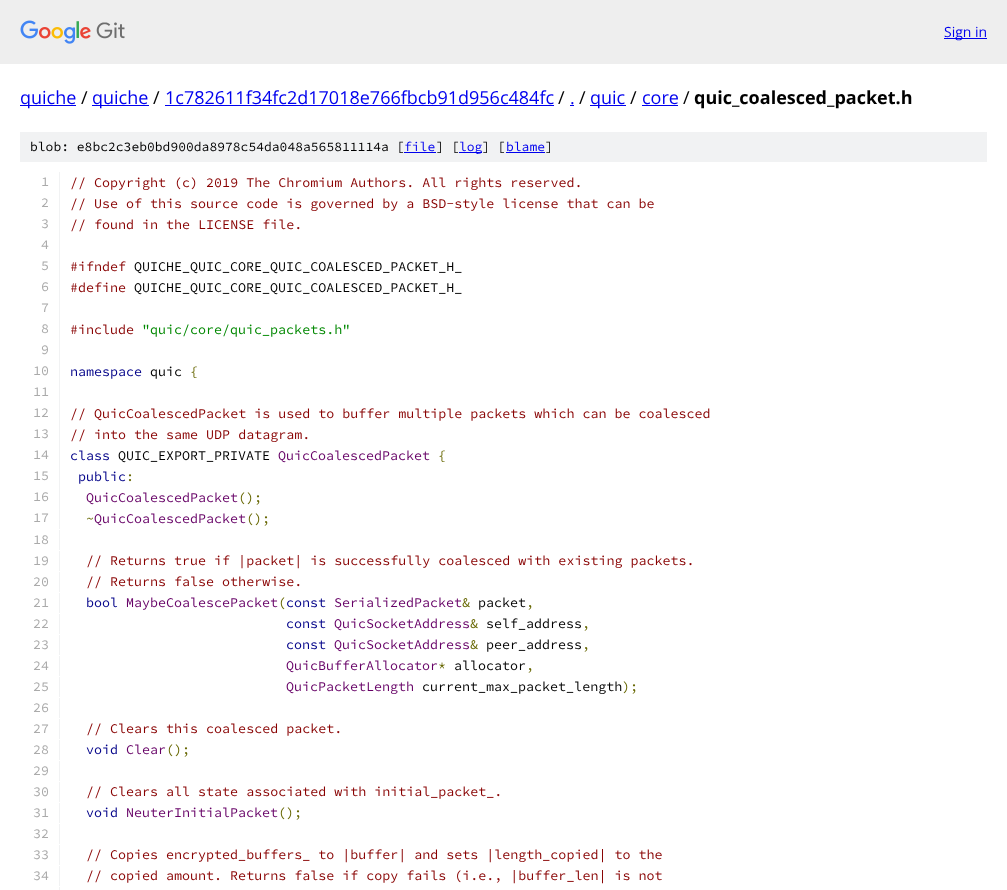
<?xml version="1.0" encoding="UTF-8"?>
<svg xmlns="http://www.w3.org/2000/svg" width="1007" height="890">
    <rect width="100%" height="100%" fill="#FFFFFF"/>
    <rect x="0" y="0" width="1007" height="64" fill="#EEEEEE"/>
    <image x="20" y="20" width="105" height="24" href="img_01.png"/>
    <rect x="944" y="38" width="43" height="1" fill="#0000EE"/>
    <text x="944" y="37" font-family="Open Sans" font-size="14" fill="#0000EE">Sign in</text>
    <rect x="20" y="105" width="56" height="1" fill="#0000EE"/>
    <text x="20" y="104" font-family="Open Sans" font-size="18" fill="#0000EE">quiche</text>
    <text x="81" y="104" font-family="Open Sans" font-size="18" fill="#000000">/</text>
    <rect x="92" y="105" width="57" height="1" fill="#0000EE"/>
    <text x="92" y="104" font-family="Open Sans" font-size="18" fill="#0000EE">quiche</text>
    <text x="153" y="104" font-family="Open Sans" font-size="18" fill="#000000">/</text>
    <text x="165" y="104" font-family="Open Sans" font-size="18" fill="#0000EE">1c782611f34fc2d17018e766fbcb91d956c484fc</text>
    <rect x="165" y="105" width="389" height="1" fill="#0000EE"/>
    <text x="558" y="104" font-family="Open Sans" font-size="18" fill="#000000">/</text>
    <text x="570" y="104" font-family="Open Sans" font-size="18" fill="#0000EE">.</text>
    <rect x="570" y="105" width="4" height="1" fill="#0000EE"/>
    <text x="579" y="104" font-family="Open Sans" font-size="18" fill="#000000">/</text>
    <rect x="590" y="105" width="36" height="1" fill="#0000EE"/>
    <text x="590" y="104" font-family="Open Sans" font-size="18" fill="#0000EE">quic</text>
    <text x="630" y="104" font-family="Open Sans" font-size="18" fill="#000000">/</text>
    <text x="642" y="104" font-family="Open Sans" font-size="18" fill="#0000EE">core</text>
    <rect x="642" y="105" width="36" height="1" fill="#0000EE"/>
    <text x="683" y="104" font-family="Open Sans" font-size="18" fill="#000000">/</text>
    <text x="694" y="104" font-family="Open Sans" font-size="18" font-weight="700" fill="#000000">quic_coalesced_packet.h</text>
    <rect x="20" y="132" width="967" height="30" fill="#F1F2F3"/>
    <text x="30" y="151" font-family="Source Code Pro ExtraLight" font-size="13" font-weight="200" fill="#000000">blob: e8bc2c3eb0bd900da8978c54da048a565811114a [</text>
    <text x="404" y="151" font-family="Source Code Pro ExtraLight" font-size="13" font-weight="200" fill="#0000EE">file</text>
    <rect x="404" y="152" width="32" height="1" fill="#0000EE"/>
    <text x="436" y="151" font-family="Source Code Pro ExtraLight" font-size="13" font-weight="200" fill="#000000">] [</text>
    <rect x="459" y="152" width="23" height="1" fill="#0000EE"/>
    <text x="459" y="151" font-family="Source Code Pro ExtraLight" font-size="13" font-weight="200" fill="#0000EE">log</text>
    <text x="482" y="151" font-family="Source Code Pro ExtraLight" font-size="13" font-weight="200" fill="#000000">] [</text>
    <text x="506" y="151" font-family="Source Code Pro ExtraLight" font-size="13" font-weight="200" fill="#0000EE">blame</text>
    <rect x="506" y="152" width="39" height="1" fill="#0000EE"/>
    <text x="545" y="151" font-family="Source Code Pro ExtraLight" font-size="13" font-weight="200" fill="#000000">]</text>
    <rect x="59" y="172" width="1" height="357" fill="#F1F2F3"/>
    <text x="41" y="186" font-family="Source Code Pro ExtraLight" font-size="13.35" font-weight="200" fill="#AAAAAA">1</text>
    <text x="70" y="187" font-family="Source Code Pro ExtraLight" font-size="13.35" font-weight="200" fill="#880000">// Copyright (c) 2019 The Chromium Authors. All rights reserved.</text>
    <text x="41" y="207" font-family="Source Code Pro ExtraLight" font-size="13.35" font-weight="200" fill="#AAAAAA">2</text>
    <text x="70" y="208" font-family="Source Code Pro ExtraLight" font-size="13.35" font-weight="200" fill="#880000">// Use of this source code is governed by a BSD-style license that can be</text>
    <text x="41" y="228" font-family="Source Code Pro ExtraLight" font-size="13.35" font-weight="200" fill="#AAAAAA">3</text>
    <text x="70" y="229" font-family="Source Code Pro ExtraLight" font-size="13.35" font-weight="200" fill="#880000">// found in the LICENSE file.</text>
    <text font-family="Source Code Pro ExtraLight" font-size="13.35" font-weight="200" fill="#AAAAAA">
        <tspan x="41" y="249">4</tspan>
        <tspan x="41" y="270">5</tspan>
    </text>
    <text x="70" y="271" font-family="Source Code Pro ExtraLight" font-size="13.35" font-weight="200" fill="#880000">#ifndef</text>
    <text x="134" y="271" font-family="Source Code Pro ExtraLight" font-size="13.35" font-weight="200" fill="#000000">QUICHE_QUIC_CORE_QUIC_COALESCED_PACKET_H_</text>
    <text x="41" y="291" font-family="Source Code Pro ExtraLight" font-size="13.35" font-weight="200" fill="#AAAAAA">6</text>
    <text x="70" y="292" font-family="Source Code Pro ExtraLight" font-size="13.35" font-weight="200" fill="#880000">#define</text>
    <text x="134" y="292" font-family="Source Code Pro ExtraLight" font-size="13.35" font-weight="200" fill="#000000">QUICHE_QUIC_CORE_QUIC_COALESCED_PACKET_H_</text>
    <text font-family="Source Code Pro ExtraLight" font-size="13.35" font-weight="200" fill="#AAAAAA">
        <tspan x="41" y="312">7</tspan>
        <tspan x="41" y="333">8</tspan>
    </text>
    <text x="70" y="334" font-family="Source Code Pro ExtraLight" font-size="13.35" font-weight="200" fill="#880000">#include</text>
    <text x="142" y="334" font-family="Source Code Pro ExtraLight" font-size="13.35" font-weight="200" fill="#008800">"quic/core/quic_packets.h"</text>
    <text x="41" y="354" font-family="Source Code Pro ExtraLight" font-size="13.35" font-weight="200" fill="#AAAAAA">9</text>
    <text x="33" y="375" font-family="Source Code Pro ExtraLight" font-size="13.35" font-weight="200" fill="#AAAAAA">10</text>
    <text x="70" y="376" font-family="Source Code Pro ExtraLight" font-size="13.35" font-weight="200" fill="#000088">namespace</text>
    <text x="150" y="376" font-family="Source Code Pro ExtraLight" font-size="13.35" font-weight="200" fill="#000000">quic</text>
    <text x="190" y="376" font-family="Source Code Pro ExtraLight" font-size="13.35" font-weight="200" fill="#666600">{</text>
    <text font-family="Source Code Pro ExtraLight" font-size="13.35" font-weight="200" fill="#AAAAAA">
        <tspan x="33" y="396">11</tspan>
        <tspan x="33" y="417">12</tspan>
    </text>
    <text x="70" y="418" font-family="Source Code Pro ExtraLight" font-size="13.35" font-weight="200" fill="#880000">// QuicCoalescedPacket is used to buffer multiple packets which can be coalesced</text>
    <text x="33" y="438" font-family="Source Code Pro ExtraLight" font-size="13.35" font-weight="200" fill="#AAAAAA">13</text>
    <text x="70" y="439" font-family="Source Code Pro ExtraLight" font-size="13.35" font-weight="200" fill="#880000">// into the same UDP datagram.</text>
    <text x="33" y="459" font-family="Source Code Pro ExtraLight" font-size="13.35" font-weight="200" fill="#AAAAAA">14</text>
    <text x="70" y="460" font-family="Source Code Pro ExtraLight" font-size="13.35" font-weight="200" fill="#000088">class</text>
    <text x="118" y="460" font-family="Source Code Pro ExtraLight" font-size="13.35" font-weight="200" fill="#000000">QUIC_EXPORT_PRIVATE</text>
    <text x="278" y="460" font-family="Source Code Pro ExtraLight" font-size="13.35" font-weight="200" fill="#660066">QuicCoalescedPacket</text>
    <text x="438" y="460" font-family="Source Code Pro ExtraLight" font-size="13.35" font-weight="200" fill="#666600">{</text>
    <text x="33" y="480" font-family="Source Code Pro ExtraLight" font-size="13.35" font-weight="200" fill="#AAAAAA">15</text>
    <text x="78" y="481" font-family="Source Code Pro ExtraLight" font-size="13.35" font-weight="200" fill="#000088">public</text>
    <text x="126" y="481" font-family="Source Code Pro ExtraLight" font-size="13.35" font-weight="200" fill="#666600">:</text>
    <text x="33" y="501" font-family="Source Code Pro ExtraLight" font-size="13.35" font-weight="200" fill="#AAAAAA">16</text>
    <text x="86" y="502" font-family="Source Code Pro ExtraLight" font-size="13.35" font-weight="200" fill="#660066">QuicCoalescedPacket</text>
    <text x="238" y="502" font-family="Source Code Pro ExtraLight" font-size="13.35" font-weight="200" fill="#666600">();</text>
    <text x="33" y="522" font-family="Source Code Pro ExtraLight" font-size="13.35" font-weight="200" fill="#AAAAAA">17</text>
    <text x="86" y="523" font-family="Source Code Pro ExtraLight" font-size="13.35" font-weight="200" fill="#666600">~</text>
    <text x="94" y="523" font-family="Source Code Pro ExtraLight" font-size="13.35" font-weight="200" fill="#660066">QuicCoalescedPacket</text>
    <text x="246" y="523" font-family="Source Code Pro ExtraLight" font-size="13.35" font-weight="200" fill="#666600">();</text>
    <rect x="59" y="530" width="1" height="20" fill="#F1F2F3"/>
    <text x="33" y="544" font-family="Source Code Pro ExtraLight" font-size="13.35" font-weight="200" fill="#AAAAAA">18</text>
    <rect x="59" y="551" width="1" height="20" fill="#F1F2F3"/>
    <text x="33" y="565" font-family="Source Code Pro ExtraLight" font-size="13.35" font-weight="200" fill="#AAAAAA">19</text>
    <text x="86" y="565" font-family="Source Code Pro ExtraLight" font-size="13.35" font-weight="200" fill="#880000">// Returns true if |packet| is successfully coalesced with existing packets.</text>
    <rect x="59" y="572" width="1" height="20" fill="#F1F2F3"/>
    <text x="33" y="586" font-family="Source Code Pro ExtraLight" font-size="13.35" font-weight="200" fill="#AAAAAA">20</text>
    <text x="86" y="586" font-family="Source Code Pro ExtraLight" font-size="13.35" font-weight="200" fill="#880000">// Returns false otherwise.</text>
    <rect x="59" y="593" width="1" height="20" fill="#F1F2F3"/>
    <text x="33" y="607" font-family="Source Code Pro ExtraLight" font-size="13.35" font-weight="200" fill="#AAAAAA">21</text>
    <text x="86" y="607" font-family="Source Code Pro ExtraLight" font-size="13.35" font-weight="200" fill="#000088">bool</text>
    <text x="126" y="607" font-family="Source Code Pro ExtraLight" font-size="13.35" font-weight="200" fill="#660066">MaybeCoalescePacket</text>
    <text x="278" y="607" font-family="Source Code Pro ExtraLight" font-size="13.35" font-weight="200" fill="#666600">(</text>
    <text x="286" y="607" font-family="Source Code Pro ExtraLight" font-size="13.35" font-weight="200" fill="#000088">const</text>
    <text x="334" y="607" font-family="Source Code Pro ExtraLight" font-size="13.35" font-weight="200" fill="#660066">SerializedPacket</text>
    <text x="462" y="607" font-family="Source Code Pro ExtraLight" font-size="13.35" font-weight="200" fill="#666600">&amp;</text>
    <text x="478" y="607" font-family="Source Code Pro ExtraLight" font-size="13.35" font-weight="200" fill="#000000">packet</text>
    <text x="526" y="607" font-family="Source Code Pro ExtraLight" font-size="13.35" font-weight="200" fill="#666600">,</text>
    <rect x="59" y="614" width="1" height="20" fill="#F1F2F3"/>
    <text x="33" y="628" font-family="Source Code Pro ExtraLight" font-size="13.35" font-weight="200" fill="#AAAAAA">22</text>
    <text x="286" y="628" font-family="Source Code Pro ExtraLight" font-size="13.35" font-weight="200" fill="#000088">const</text>
    <text x="334" y="628" font-family="Source Code Pro ExtraLight" font-size="13.35" font-weight="200" fill="#660066">QuicSocketAddress</text>
    <text x="470" y="628" font-family="Source Code Pro ExtraLight" font-size="13.35" font-weight="200" fill="#666600">&amp;</text>
    <text x="486" y="628" font-family="Source Code Pro ExtraLight" font-size="13.35" font-weight="200" fill="#000000">self_address</text>
    <text x="582" y="628" font-family="Source Code Pro ExtraLight" font-size="13.35" font-weight="200" fill="#666600">,</text>
    <rect x="59" y="635" width="1" height="20" fill="#F1F2F3"/>
    <text x="33" y="649" font-family="Source Code Pro ExtraLight" font-size="13.35" font-weight="200" fill="#AAAAAA">23</text>
    <text x="286" y="649" font-family="Source Code Pro ExtraLight" font-size="13.35" font-weight="200" fill="#000088">const</text>
    <text x="334" y="649" font-family="Source Code Pro ExtraLight" font-size="13.35" font-weight="200" fill="#660066">QuicSocketAddress</text>
    <text x="470" y="649" font-family="Source Code Pro ExtraLight" font-size="13.35" font-weight="200" fill="#666600">&amp;</text>
    <text x="486" y="649" font-family="Source Code Pro ExtraLight" font-size="13.35" font-weight="200" fill="#000000">peer_address</text>
    <text x="582" y="649" font-family="Source Code Pro ExtraLight" font-size="13.35" font-weight="200" fill="#666600">,</text>
    <rect x="59" y="656" width="1" height="20" fill="#F1F2F3"/>
    <text x="33" y="670" font-family="Source Code Pro ExtraLight" font-size="13.35" font-weight="200" fill="#AAAAAA">24</text>
    <text x="286" y="670" font-family="Source Code Pro ExtraLight" font-size="13.35" font-weight="200" fill="#660066">QuicBufferAllocator</text>
    <text x="438" y="670" font-family="Source Code Pro ExtraLight" font-size="13.35" font-weight="200" fill="#666600">*</text>
    <text x="454" y="670" font-family="Source Code Pro ExtraLight" font-size="13.35" font-weight="200" fill="#000000">allocator</text>
    <text x="526" y="670" font-family="Source Code Pro ExtraLight" font-size="13.35" font-weight="200" fill="#666600">,</text>
    <rect x="59" y="677" width="1" height="20" fill="#F1F2F3"/>
    <text x="33" y="691" font-family="Source Code Pro ExtraLight" font-size="13.35" font-weight="200" fill="#AAAAAA">25</text>
    <text x="286" y="691" font-family="Source Code Pro ExtraLight" font-size="13.35" font-weight="200" fill="#660066">QuicPacketLength</text>
    <text x="422" y="691" font-family="Source Code Pro ExtraLight" font-size="13.35" font-weight="200" fill="#000000">current_max_packet_length</text>
    <text x="622" y="691" font-family="Source Code Pro ExtraLight" font-size="13.35" font-weight="200" fill="#666600">);</text>
    <rect x="59" y="698" width="1" height="20" fill="#F1F2F3"/>
    <text x="33" y="712" font-family="Source Code Pro ExtraLight" font-size="13.35" font-weight="200" fill="#AAAAAA">26</text>
    <rect x="59" y="719" width="1" height="20" fill="#F1F2F3"/>
    <text x="33" y="733" font-family="Source Code Pro ExtraLight" font-size="13.35" font-weight="200" fill="#AAAAAA">27</text>
    <text x="86" y="733" font-family="Source Code Pro ExtraLight" font-size="13.35" font-weight="200" fill="#880000">// Clears this coalesced packet.</text>
    <rect x="59" y="740" width="1" height="20" fill="#F1F2F3"/>
    <text x="33" y="754" font-family="Source Code Pro ExtraLight" font-size="13.35" font-weight="200" fill="#AAAAAA">28</text>
    <text x="86" y="754" font-family="Source Code Pro ExtraLight" font-size="13.35" font-weight="200" fill="#000088">void</text>
    <text x="126" y="754" font-family="Source Code Pro ExtraLight" font-size="13.35" font-weight="200" fill="#660066">Clear</text>
    <text x="166" y="754" font-family="Source Code Pro ExtraLight" font-size="13.35" font-weight="200" fill="#666600">();</text>
    <rect x="59" y="761" width="1" height="20" fill="#F1F2F3"/>
    <text x="33" y="775" font-family="Source Code Pro ExtraLight" font-size="13.35" font-weight="200" fill="#AAAAAA">29</text>
    <rect x="59" y="782" width="1" height="20" fill="#F1F2F3"/>
    <text x="33" y="796" font-family="Source Code Pro ExtraLight" font-size="13.35" font-weight="200" fill="#AAAAAA">30</text>
    <text x="86" y="796" font-family="Source Code Pro ExtraLight" font-size="13.35" font-weight="200" fill="#880000">// Clears all state associated with initial_packet_.</text>
    <rect x="59" y="803" width="1" height="20" fill="#F1F2F3"/>
    <text x="33" y="817" font-family="Source Code Pro ExtraLight" font-size="13.35" font-weight="200" fill="#AAAAAA">31</text>
    <text x="86" y="817" font-family="Source Code Pro ExtraLight" font-size="13.35" font-weight="200" fill="#000088">void</text>
    <text x="126" y="817" font-family="Source Code Pro ExtraLight" font-size="13.35" font-weight="200" fill="#660066">NeuterInitialPacket</text>
    <text x="278" y="817" font-family="Source Code Pro ExtraLight" font-size="13.35" font-weight="200" fill="#666600">();</text>
    <rect x="59" y="824" width="1" height="20" fill="#F1F2F3"/>
    <text x="33" y="838" font-family="Source Code Pro ExtraLight" font-size="13.35" font-weight="200" fill="#AAAAAA">32</text>
    <rect x="59" y="845" width="1" height="20" fill="#F1F2F3"/>
    <text x="33" y="859" font-family="Source Code Pro ExtraLight" font-size="13.35" font-weight="200" fill="#AAAAAA">33</text>
    <text x="86" y="859" font-family="Source Code Pro ExtraLight" font-size="13.35" font-weight="200" fill="#880000">// Copies encrypted_buffers_ to |buffer| and sets |length_copied| to the</text>
    <rect x="59" y="866" width="1" height="20" fill="#F1F2F3"/>
    <text x="33" y="880" font-family="Source Code Pro ExtraLight" font-size="13.35" font-weight="200" fill="#AAAAAA">34</text>
    <text x="86" y="880" font-family="Source Code Pro ExtraLight" font-size="13.35" font-weight="200" fill="#880000">// copied amount. Returns false if copy fails (i.e., |buffer_len| is not</text>
    <rect x="59" y="887" width="1" height="3" fill="#F1F2F3"/>
</svg>
